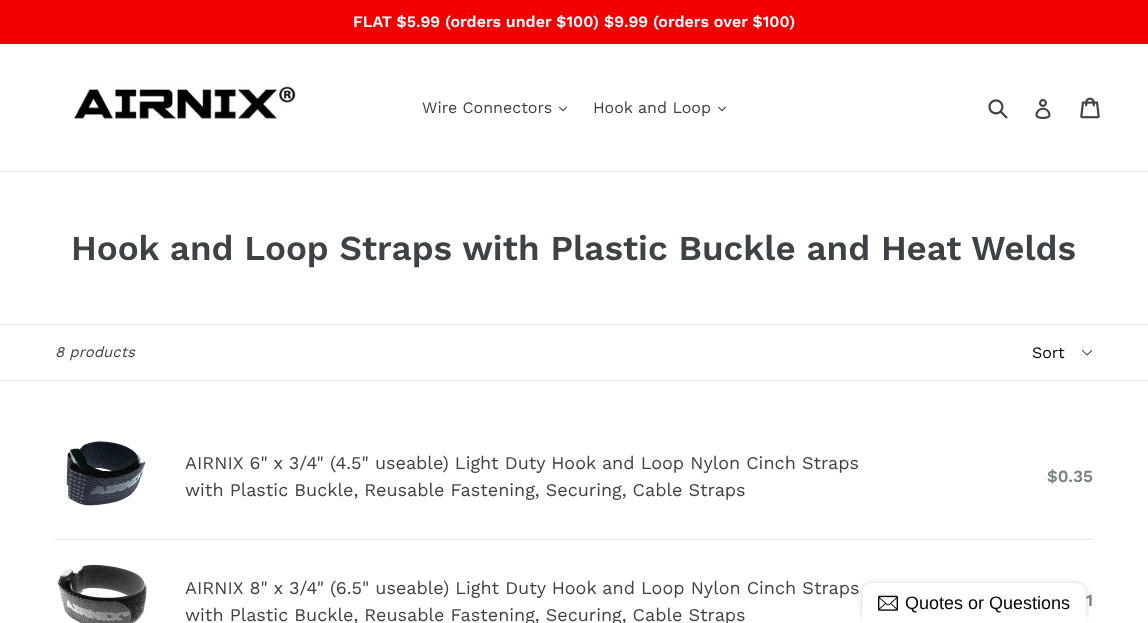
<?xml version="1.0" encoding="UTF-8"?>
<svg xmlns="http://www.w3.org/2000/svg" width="1148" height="623">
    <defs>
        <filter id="blur1" x="-50%" y="-200%" width="200%" height="500%"><feGaussianBlur stdDeviation="2.5"/></filter>
    </defs>
    <rect width="100%" height="100%" fill="#FFFFFF"/>
    <rect x="0" y="0" width="1148" height="44" fill="#F10000"/>
    <text x="353" y="27" font-family="Work Sans" font-size="16" font-weight="600" fill="#FFFFFF">FLAT $5.99 (orders under $100) $9.99 (orders over $100)</text>
    <rect x="0" y="171" width="1148" height="1" fill="#E8E9EB"/>
    <image x="74" y="85" width="222" height="35" href="img_01.png"/>
    <text x="422" y="113" font-family="Work Sans" font-size="16" fill="#3D4246">Wire Connectors</text>
    <image x="559" y="106" width="8" height="6" href="img_02.png"/>
    <text x="593" y="113" font-family="Work Sans" font-size="16" fill="#3D4246">Hook and Loop</text>
    <image x="718" y="106" width="8" height="6" href="img_02.png"/>
    <image x="988" y="99" width="20" height="20" href="img_03.png"/>
    <image x="1035" y="99" width="16" height="20" href="img_04.png"/>
    <image x="1080" y="97" width="20" height="22" href="img_05.png"/>
    <text x="71" y="260" font-family="Work Sans" font-size="35" font-weight="600" fill="#3D4246">Hook and Loop Straps with Plastic Buckle and Heat Welds</text>
    <rect x="0" y="324" width="1148" height="1" fill="#E8E9EB"/>
    <rect x="0" y="380" width="1148" height="1" fill="#E8E9EB"/>
    <text x="55" y="357" font-family="Work Sans" font-size="15" font-style="italic" fill="#3D4246">8 products</text>
    <image x="1081" y="349" width="12" height="7" href="img_06.png"/>
    <text x="1032" y="358" font-family="Work Sans" font-size="16" fill="#000000">Sort</text>
    <rect x="55" y="539" width="1038" height="1" fill="#E8E9EB"/>
    <image x="66" y="439" width="80" height="68" href="img_07.png"/>
    <text font-family="Work Sans" font-size="18" fill="#3D4246">
        <tspan x="185" y="469">AIRNIX 6" x 3/4" (4.5" useable) Light Duty Hook and Loop Nylon Cinch Straps</tspan>
        <tspan x="185" y="496">with Plastic Buckle, Reusable Fastening, Securing, Cable Straps</tspan>
    </text>
    <text x="1047" y="482" font-family="Work Sans" font-size="17" font-weight="600" fill="#788188">$0.35</text>
    <image x="57" y="563" width="90" height="60" href="img_08.png"/>
    <text font-family="Work Sans" font-size="18" fill="#3D4246">
        <tspan x="185" y="594">AIRNIX 8" x 3/4" (6.5" useable) Light Duty Hook and Loop Nylon Cinch Straps</tspan>
        <tspan x="185" y="621">with Plastic Buckle, Reusable Fastening, Securing, Cable Straps</tspan>
    </text>
    <text x="1086" y="606" font-family="Work Sans" font-size="17" font-weight="600" fill="#788188">1</text>
    <rect x="862" y="583" width="224" height="40" rx="10" fill="#000000" fill-opacity="0.2" filter="url(#blur1)"/>
    <path d="M 872 583 H 1076 C 1081.5 583 1086 587.5 1086 593 V 623 H 862 V 593 C 862 587.5 866.5 583 872 583 Z" fill="#FFFFFF"/>
    <image x="878" y="595" width="20" height="16" href="img_09.png"/>
    <text x="905" y="609" font-family="Liberation Sans" font-size="18" fill="#000000">Quotes or Questions</text>
</svg>
